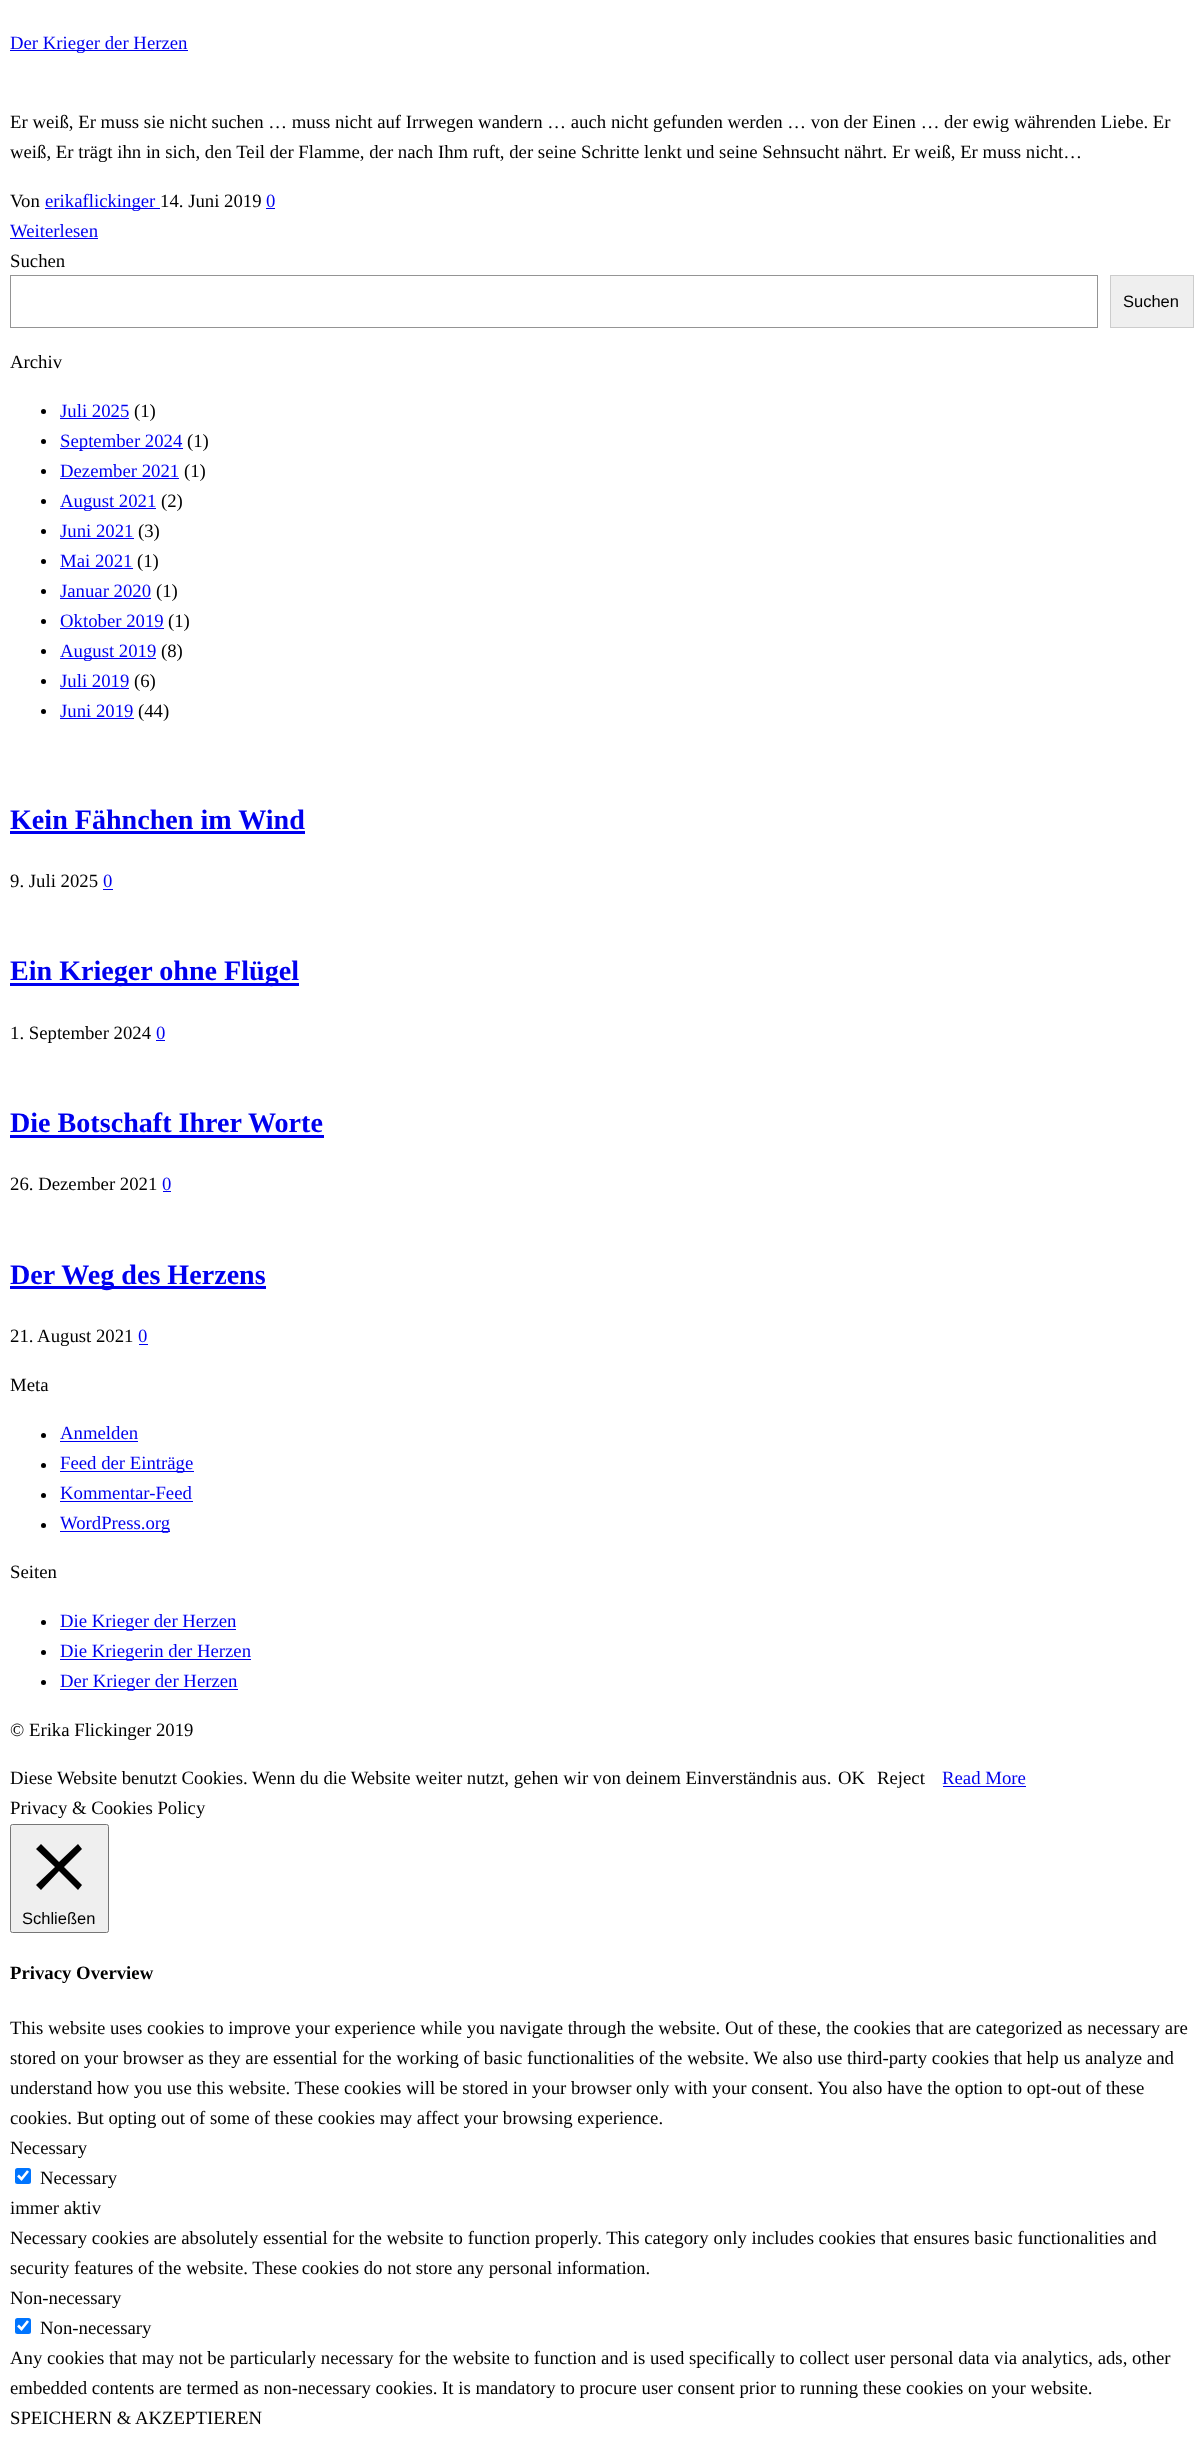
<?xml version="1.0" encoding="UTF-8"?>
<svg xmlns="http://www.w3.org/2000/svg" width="1203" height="2442">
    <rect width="100%" height="100%" fill="#FFFFFF"/>
    <rect x="10" y="50" width="178" height="1" fill="#0000EE"/>
    <text x="10" y="49" font-family="Liberation Serif" font-size="18.75" fill="#0000EE">Der Krieger der Herzen</text>
    <text font-family="Liberation Serif" font-size="18.75" fill="#000000">
        <tspan x="10" y="128">Er weiß, Er muss sie nicht suchen … muss nicht auf Irrwegen wandern … auch nicht gefunden werden … von der Einen … der ewig währenden Liebe. Er</tspan>
        <tspan x="10" y="158">weiß, Er trägt ihn in sich, den Teil der Flamme, der nach Ihm ruft, der seine Schritte lenkt und seine Sehnsucht nährt. Er weiß, Er muss nicht…</tspan>
    </text>
    <text x="10" y="207" font-family="Liberation Serif" font-size="18.75" fill="#000000">Von</text>
    <rect x="45" y="208" width="115" height="1" fill="#0000EE"/>
    <text x="45" y="207" font-family="Liberation Serif" font-size="18.75" fill="#0000EE">erikaflickinger</text>
    <text x="160" y="207" font-family="Liberation Serif" font-size="18.75" fill="#000000">14. Juni 2019</text>
    <text x="266" y="207" font-family="Liberation Serif" font-size="18.75" fill="#0000EE">0</text>
    <rect x="266" y="208" width="9" height="1" fill="#0000EE"/>
    <text x="10" y="237" font-family="Liberation Serif" font-size="18.75" fill="#0000EE">Weiterlesen</text>
    <rect x="10" y="238" width="88" height="1" fill="#0000EE"/>
    <text x="10" y="267" font-family="Liberation Serif" font-size="18.75" fill="#000000">Suchen</text>
    <rect x="10.5" y="275.5" width="1087" height="52" fill="none" stroke="#949494"/>
    <rect x="1110.5" y="275.5" width="83" height="52" fill="#EFEFEF" stroke="#CCCCCC"/>
    <text x="1123" y="307" font-family="Liberation Sans" font-size="16.5" fill="#000000">Suchen</text>
    <text x="10" y="368" font-family="Liberation Serif" font-size="18.75" fill="#000000">Archiv</text>
    <circle cx="43.5" cy="411.5" r="2.5" fill="#000000"/>
    <text x="60" y="417" font-family="Liberation Serif" font-size="18.75" fill="#0000EE">Juli 2025</text>
    <rect x="60" y="418" width="69" height="1" fill="#0000EE"/>
    <text x="134" y="417" font-family="Liberation Serif" font-size="18.75" fill="#000000">(1)</text>
    <circle cx="43.5" cy="441.5" r="2.5" fill="#000000"/>
    <rect x="60" y="448" width="123" height="1" fill="#0000EE"/>
    <text x="60" y="447" font-family="Liberation Serif" font-size="18.75" fill="#0000EE">September 2024</text>
    <text x="187" y="447" font-family="Liberation Serif" font-size="18.75" fill="#000000">(1)</text>
    <circle cx="43.5" cy="471.5" r="2.5" fill="#000000"/>
    <text x="60" y="477" font-family="Liberation Serif" font-size="18.75" fill="#0000EE">Dezember 2021</text>
    <rect x="60" y="478" width="119" height="1" fill="#0000EE"/>
    <text x="184" y="477" font-family="Liberation Serif" font-size="18.75" fill="#000000">(1)</text>
    <circle cx="43.5" cy="501.5" r="2.5" fill="#000000"/>
    <rect x="60" y="508" width="96" height="1" fill="#0000EE"/>
    <text x="60" y="507" font-family="Liberation Serif" font-size="18.75" fill="#0000EE">August 2021</text>
    <text x="161" y="507" font-family="Liberation Serif" font-size="18.75" fill="#000000">(2)</text>
    <circle cx="43.5" cy="531.5" r="2.5" fill="#000000"/>
    <text x="60" y="537" font-family="Liberation Serif" font-size="18.75" fill="#0000EE">Juni 2021</text>
    <rect x="60" y="538" width="74" height="1" fill="#0000EE"/>
    <text x="138" y="537" font-family="Liberation Serif" font-size="18.75" fill="#000000">(3)</text>
    <circle cx="43.5" cy="561.5" r="2.5" fill="#000000"/>
    <text x="60" y="567" font-family="Liberation Serif" font-size="18.75" fill="#0000EE">Mai 2021</text>
    <rect x="60" y="568" width="73" height="1" fill="#0000EE"/>
    <text x="137" y="567" font-family="Liberation Serif" font-size="18.75" fill="#000000">(1)</text>
    <circle cx="43.5" cy="591.5" r="2.5" fill="#000000"/>
    <text x="60" y="597" font-family="Liberation Serif" font-size="18.75" fill="#0000EE">Januar 2020</text>
    <rect x="60" y="598" width="91" height="1" fill="#0000EE"/>
    <text x="156" y="597" font-family="Liberation Serif" font-size="18.75" fill="#000000">(1)</text>
    <circle cx="43.5" cy="621.5" r="2.5" fill="#000000"/>
    <text x="60" y="627" font-family="Liberation Serif" font-size="18.75" fill="#0000EE">Oktober 2019</text>
    <rect x="60" y="628" width="104" height="1" fill="#0000EE"/>
    <text x="168" y="627" font-family="Liberation Serif" font-size="18.75" fill="#000000">(1)</text>
    <circle cx="43.5" cy="651.5" r="2.5" fill="#000000"/>
    <rect x="60" y="658" width="96" height="1" fill="#0000EE"/>
    <text x="60" y="657" font-family="Liberation Serif" font-size="18.75" fill="#0000EE">August 2019</text>
    <text x="161" y="657" font-family="Liberation Serif" font-size="18.75" fill="#000000">(8)</text>
    <circle cx="43.5" cy="681.5" r="2.5" fill="#000000"/>
    <text x="60" y="687" font-family="Liberation Serif" font-size="18.75" fill="#0000EE">Juli 2019</text>
    <rect x="60" y="688" width="69" height="1" fill="#0000EE"/>
    <text x="134" y="687" font-family="Liberation Serif" font-size="18.75" fill="#000000">(6)</text>
    <circle cx="43.5" cy="711.5" r="2.5" fill="#000000"/>
    <text x="60" y="717" font-family="Liberation Serif" font-size="18.75" fill="#0000EE">Juni 2019</text>
    <rect x="60" y="718" width="74" height="1" fill="#0000EE"/>
    <text x="138" y="717" font-family="Liberation Serif" font-size="18.75" fill="#000000">(44)</text>
    <text x="10" y="829" font-family="Liberation Serif" font-size="28.1" font-weight="700" fill="#0000EE">Kein Fähnchen im Wind</text>
    <rect x="10" y="831" width="295" height="3" fill="#0000EE"/>
    <text x="10" y="887" font-family="Liberation Serif" font-size="18.75" fill="#000000">9. Juli 2025</text>
    <text x="103" y="887" font-family="Liberation Serif" font-size="18.75" fill="#0000EE">0</text>
    <rect x="103" y="889" width="10" height="1" fill="#0000EE"/>
    <rect x="10" y="983" width="289" height="3" fill="#0000EE"/>
    <text x="10" y="980" font-family="Liberation Serif" font-size="28.1" font-weight="700" fill="#0000EE">Ein Krieger ohne Flügel</text>
    <text x="10" y="1039" font-family="Liberation Serif" font-size="18.75" fill="#000000">1. September 2024</text>
    <text x="156" y="1039" font-family="Liberation Serif" font-size="18.75" fill="#0000EE">0</text>
    <rect x="156" y="1040" width="9" height="1" fill="#0000EE"/>
    <text x="10" y="1132" font-family="Liberation Serif" font-size="28.1" font-weight="700" fill="#0000EE">Die Botschaft Ihrer Worte</text>
    <rect x="10" y="1135" width="314" height="3" fill="#0000EE"/>
    <text x="10" y="1190" font-family="Liberation Serif" font-size="18.75" fill="#000000">26. Dezember 2021</text>
    <text x="162" y="1190" font-family="Liberation Serif" font-size="18.75" fill="#0000EE">0</text>
    <rect x="163" y="1191" width="8" height="1" fill="#0000EE"/>
    <rect x="10" y="1286" width="256" height="3" fill="#0000EE"/>
    <text x="10" y="1284" font-family="Liberation Serif" font-size="28.1" font-weight="700" fill="#0000EE">Der Weg des Herzens</text>
    <text x="10" y="1342" font-family="Liberation Serif" font-size="18.75" fill="#000000">21. August 2021</text>
    <text x="138" y="1342" font-family="Liberation Serif" font-size="18.75" fill="#0000EE">0</text>
    <rect x="139" y="1344" width="9" height="1" fill="#0000EE"/>
    <text x="10" y="1391" font-family="Liberation Serif" font-size="18.75" fill="#000000">Meta</text>
    <circle cx="43.5" cy="1435.5" r="2.5" fill="#000000"/>
    <text x="60" y="1439" font-family="Liberation Serif" font-size="18.75" fill="#0000EE">Anmelden</text>
    <rect x="60" y="1441" width="78" height="1" fill="#0000EE"/>
    <circle cx="43.5" cy="1465.5" r="2.5" fill="#000000"/>
    <rect x="60" y="1471" width="134" height="1" fill="#0000EE"/>
    <text x="60" y="1469" font-family="Liberation Serif" font-size="18.75" fill="#0000EE">Feed der Einträge</text>
    <circle cx="43.5" cy="1495.5" r="2.5" fill="#000000"/>
    <text x="60" y="1499" font-family="Liberation Serif" font-size="18.75" fill="#0000EE">Kommentar-Feed</text>
    <rect x="60" y="1501" width="133" height="1" fill="#0000EE"/>
    <circle cx="43.5" cy="1525.5" r="2.5" fill="#000000"/>
    <rect x="60" y="1531" width="110" height="1" fill="#0000EE"/>
    <text x="60" y="1529" font-family="Liberation Serif" font-size="18.75" fill="#0000EE">WordPress.org</text>
    <text x="10" y="1578" font-family="Liberation Serif" font-size="18.75" fill="#000000">Seiten</text>
    <circle cx="43.5" cy="1622.5" r="2.5" fill="#000000"/>
    <rect x="60" y="1629" width="176" height="1" fill="#0000EE"/>
    <text x="60" y="1627" font-family="Liberation Serif" font-size="18.75" fill="#0000EE">Die Krieger der Herzen</text>
    <circle cx="43.5" cy="1652.5" r="2.5" fill="#000000"/>
    <rect x="60" y="1659" width="191" height="1" fill="#0000EE"/>
    <text x="60" y="1657" font-family="Liberation Serif" font-size="18.75" fill="#0000EE">Die Kriegerin der Herzen</text>
    <circle cx="43.5" cy="1682.5" r="2.5" fill="#000000"/>
    <rect x="60" y="1689" width="178" height="1" fill="#0000EE"/>
    <text x="60" y="1687" font-family="Liberation Serif" font-size="18.75" fill="#0000EE">Der Krieger der Herzen</text>
    <text x="10" y="1736" font-family="Liberation Serif" font-size="18.75" fill="#000000">© Erika Flickinger 2019</text>
    <text x="10" y="1784" font-family="Liberation Serif" font-size="18.75" fill="#000000">Diese Website benutzt Cookies. Wenn du die Website weiter nutzt, gehen wir von deinem Einverständnis aus.</text>
    <text x="838" y="1784" font-family="Liberation Serif" font-size="18.75" fill="#000000">OK</text>
    <text x="877" y="1784" font-family="Liberation Serif" font-size="18.75" fill="#000000">Reject</text>
    <text x="942" y="1784" font-family="Liberation Serif" font-size="18.75" fill="#0000EE">Read More</text>
    <rect x="943" y="1786" width="83" height="1" fill="#0000EE"/>
    <text x="10" y="1814" font-family="Liberation Serif" font-size="18.75" fill="#000000">Privacy &amp; Cookies Policy</text>
    <rect x="10.5" y="1824.5" width="98" height="108" rx="2" fill="#EFEFEF" stroke="#767676"/>
    <path d="M 82 1849 L 78 1844 L 59 1862 L 41 1844 L 36 1849 L 55 1867 L 36 1885 L 41 1890 L 59 1871 L 78 1890 L 82 1885 L 64 1867 Z" fill="#000000"/>
    <text x="22" y="1924" font-family="Liberation Sans" font-size="16.5" fill="#000000">Schließen</text>
    <text x="10" y="1979" font-family="Liberation Serif" font-size="18.75" font-weight="700" fill="#000000">Privacy Overview</text>
    <text font-family="Liberation Serif" font-size="18.75" fill="#000000">
        <tspan x="10" y="2034">This website uses cookies to improve your experience while you navigate through the website. Out of these, the cookies that are categorized as necessary are</tspan>
        <tspan x="10" y="2064">stored on your browser as they are essential for the working of basic functionalities of the website. We also use third-party cookies that help us analyze and</tspan>
        <tspan x="10" y="2094">understand how you use this website. These cookies will be stored in your browser only with your consent. You also have the option to opt-out of these</tspan>
        <tspan x="10" y="2124">cookies. But opting out of some of these cookies may affect your browsing experience.</tspan>
        <tspan x="10" y="2154">Necessary</tspan>
    </text>
    <rect x="15" y="2168" width="16" height="16" rx="2.5" fill="#0075FF"/>
    <path d="M 18 2175.5 L 21.5 2179 L 28 2171" fill="none" stroke="#FFFFFF" stroke-width="2.6"/>
    <text x="40" y="2184" font-family="Liberation Serif" font-size="18.75" fill="#000000">Necessary</text>
    <text font-family="Liberation Serif" font-size="18.75" fill="#000000">
        <tspan x="10" y="2214">immer aktiv</tspan>
        <tspan x="10" y="2244">Necessary cookies are absolutely essential for the website to function properly. This category only includes cookies that ensures basic functionalities and</tspan>
        <tspan x="10" y="2274">security features of the website. These cookies do not store any personal information.</tspan>
        <tspan x="10" y="2304">Non-necessary</tspan>
    </text>
    <rect x="15" y="2318" width="16" height="16" rx="2.5" fill="#0075FF"/>
    <path d="M 18 2325.5 L 21.5 2329 L 28 2321" fill="none" stroke="#FFFFFF" stroke-width="2.6"/>
    <text x="40" y="2334" font-family="Liberation Serif" font-size="18.75" fill="#000000">Non-necessary</text>
    <text font-family="Liberation Serif" font-size="18.75" fill="#000000">
        <tspan x="10" y="2364">Any cookies that may not be particularly necessary for the website to function and is used specifically to collect user personal data via analytics, ads, other</tspan>
        <tspan x="10" y="2394">embedded contents are termed as non-necessary cookies. It is mandatory to procure user consent prior to running these cookies on your website.</tspan>
        <tspan x="10" y="2424">SPEICHERN &amp; AKZEPTIEREN</tspan>
    </text>
</svg>
